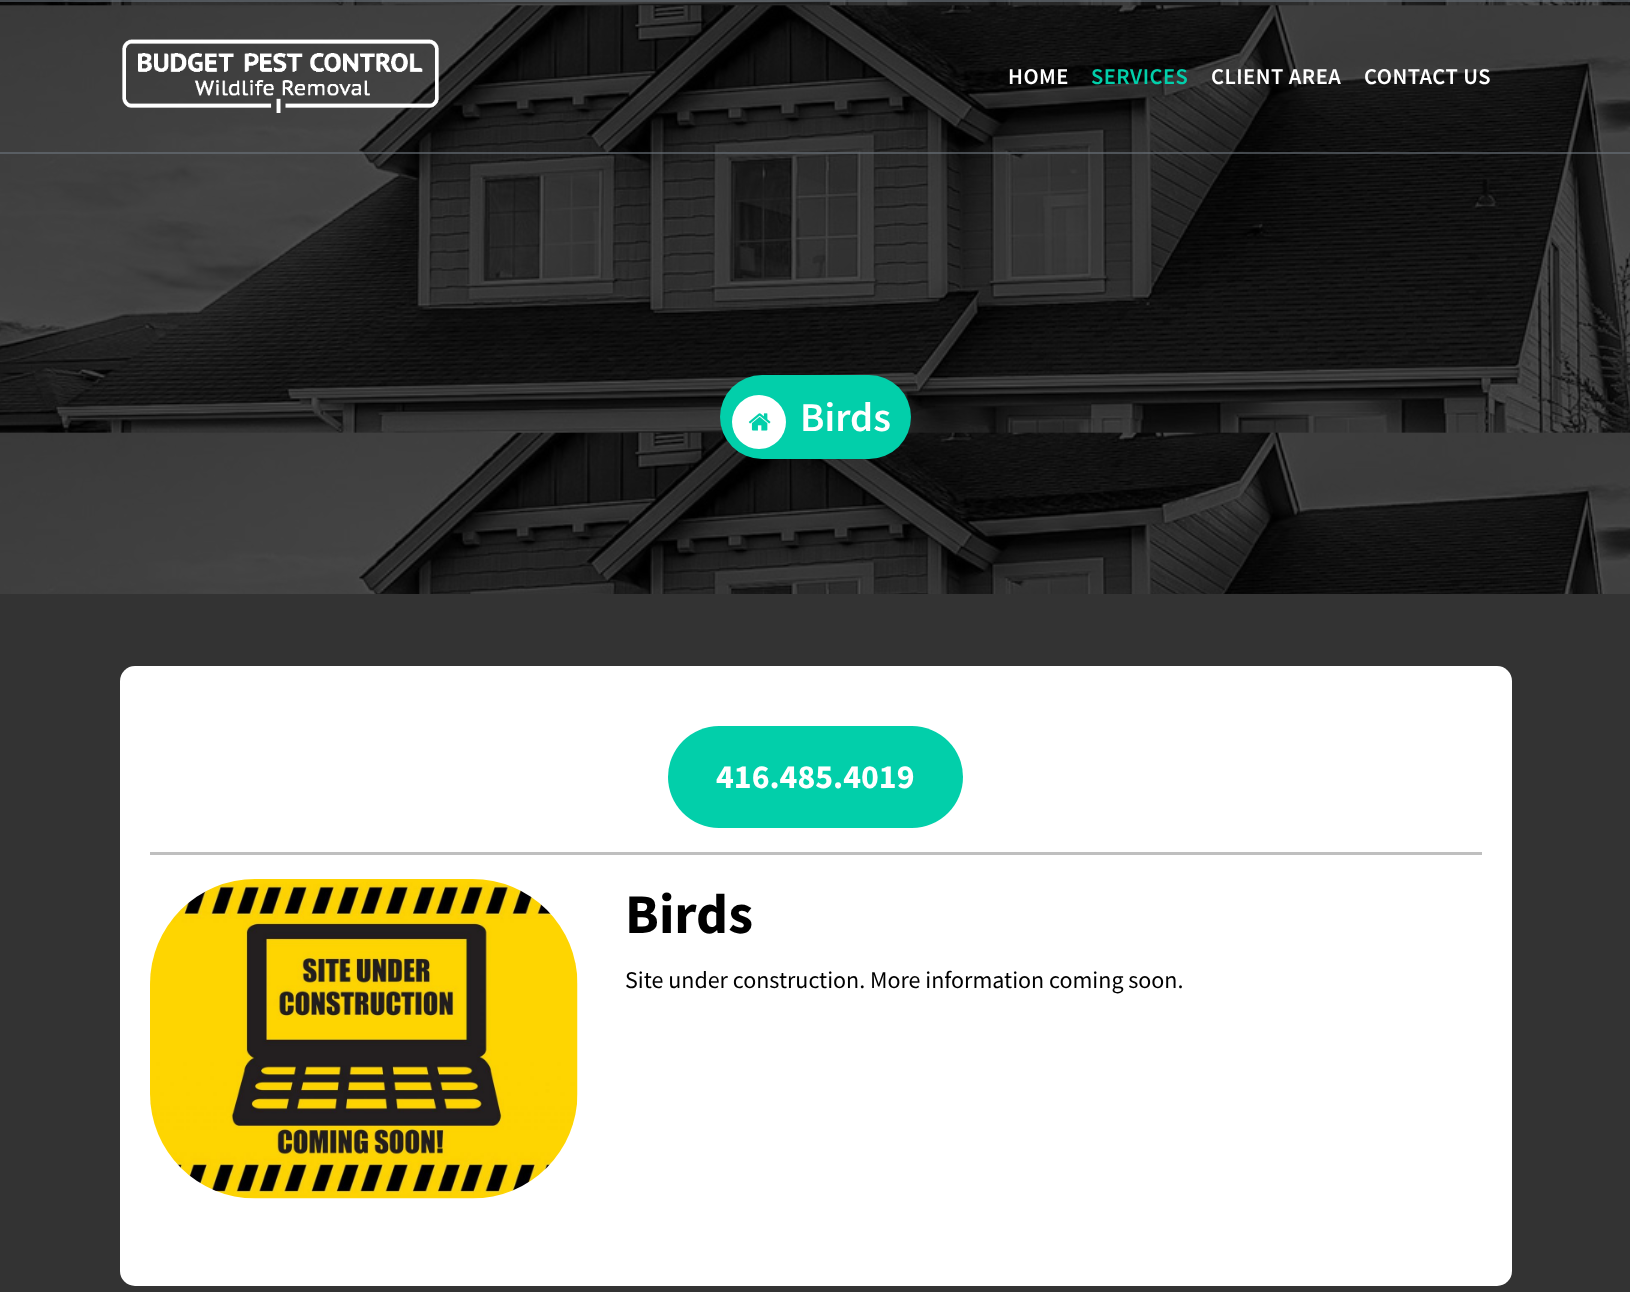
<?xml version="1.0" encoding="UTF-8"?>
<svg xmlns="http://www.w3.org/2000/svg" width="1630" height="1292">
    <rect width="100%" height="100%" fill="#333333"/>
    <image x="0" y="0" width="1630" height="594" href="img_02.png"/>
    <rect x="0" y="0" width="1630" height="2" fill="#6C757D" fill-opacity="0.6"/>
    <rect x="0" y="152" width="1630" height="2" fill="#6C757D" fill-opacity="0.6"/>
    <image x="122" y="39" width="317" height="74" href="img_01.png"/>
    <text x="1008" y="84" font-family="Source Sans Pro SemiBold" font-size="22.5" font-weight="600" letter-spacing="0.5" fill="#FFFFFF">HOME</text>
    <text x="1091" y="84" font-family="Source Sans Pro SemiBold" font-size="22.5" font-weight="600" letter-spacing="0.5" fill="#02CFAA">SERVICES</text>
    <text x="1211" y="84" font-family="Source Sans Pro SemiBold" font-size="22.5" font-weight="600" letter-spacing="0.5" fill="#FFFFFF">CLIENT AREA</text>
    <text x="1364" y="84" font-family="Source Sans Pro SemiBold" font-size="22.5" font-weight="600" letter-spacing="0.5" fill="#FFFFFF">CONTACT US</text>
    <rect x="720" y="375" width="191" height="84" rx="42" fill="#02CFAA"/>
    <circle cx="759" cy="422" r="27" fill="#FFFFFF"/>
    <image x="748" y="413" width="23" height="18" href="img_03.png"/>
    <text x="800" y="431" font-family="Source Sans Pro SemiBold" font-size="41" font-weight="600" fill="#FFFFFF">Birds</text>
    <rect x="120" y="666" width="1392" height="620" rx="15" fill="#FFFFFF"/>
    <rect x="668" y="726" width="295" height="102" rx="51" fill="#02CFAA"/>
    <text x="716" y="788" font-family="Source Sans Pro" font-size="33.75" font-weight="700" fill="#FFFFFF">416.485.4019</text>
    <rect x="150" y="852" width="1332" height="3" fill="#BFBFBF"/>
    <image x="150" y="879" width="428" height="320" href="img_04.png"/>
    <text x="625" y="933" font-family="Source Sans Pro" font-size="56" font-weight="700" fill="#000000">Birds</text>
    <text x="625" y="988" font-family="Source Sans Pro" font-size="24" fill="#000000">Site under construction. More information coming soon.</text>
</svg>
